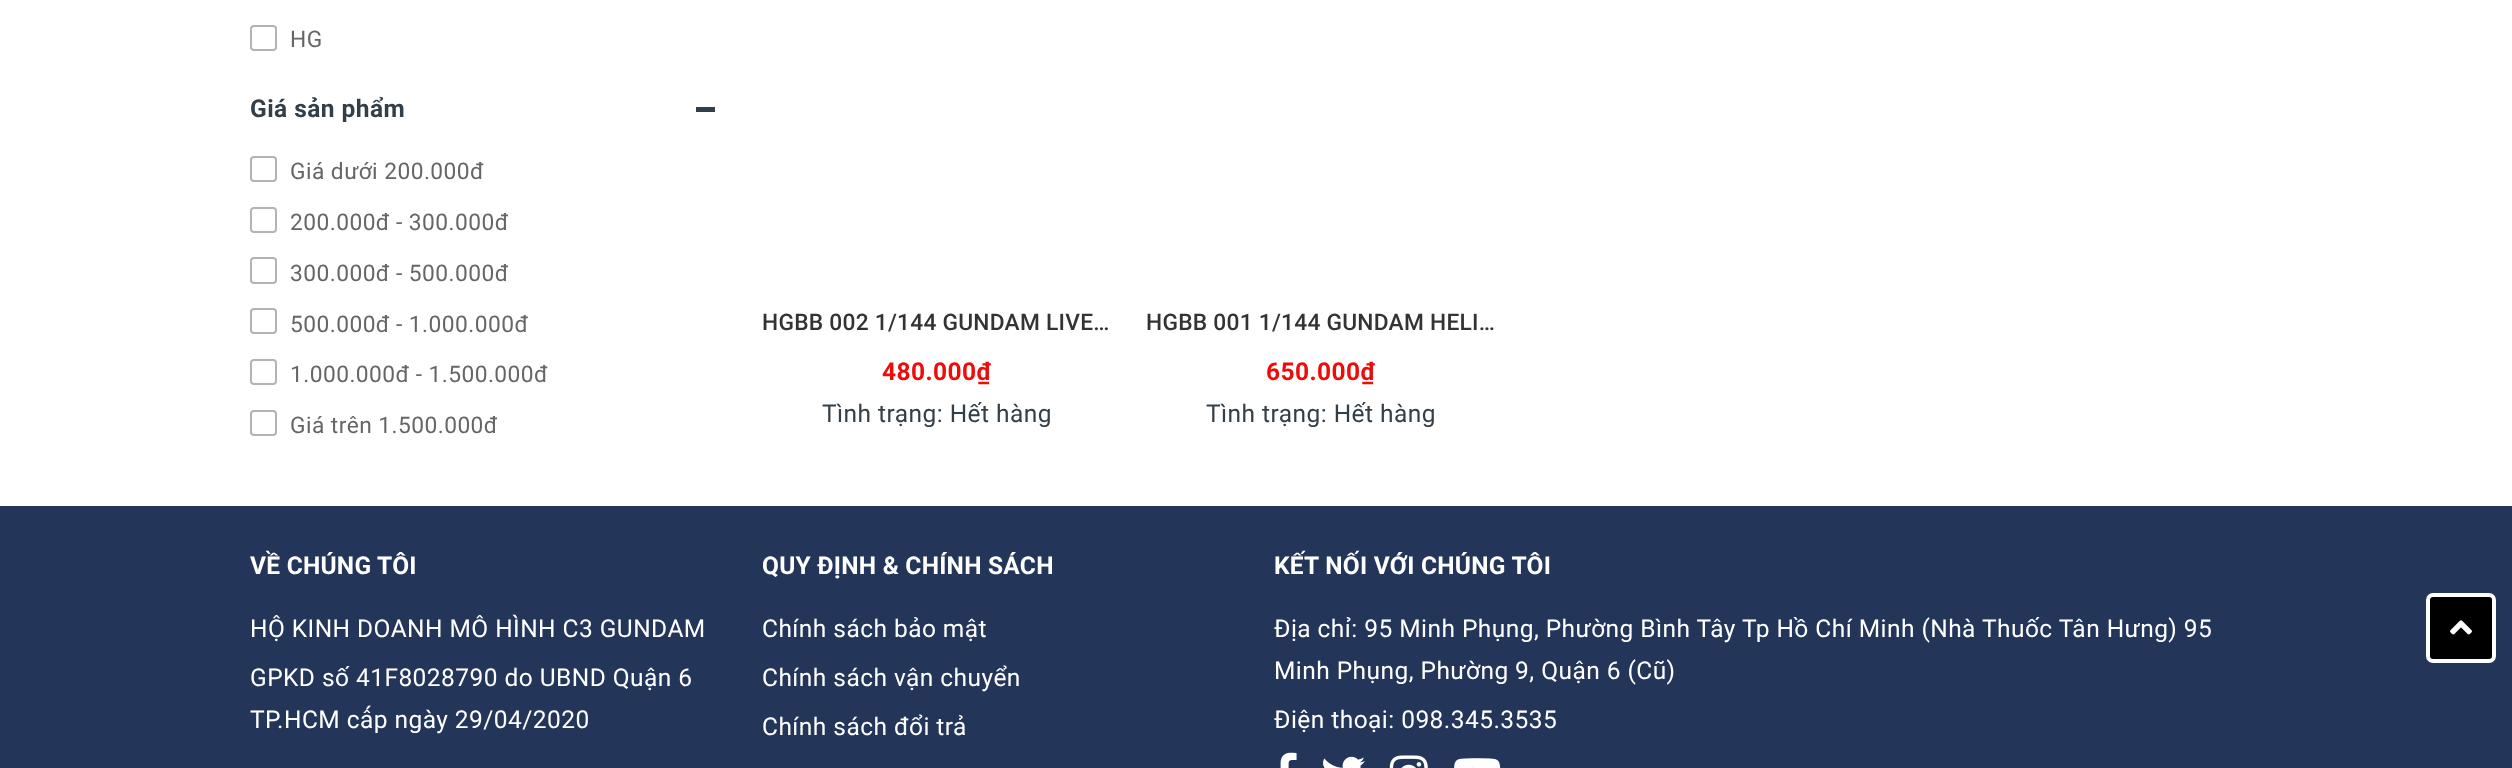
<?xml version="1.0" encoding="UTF-8"?>
<svg xmlns="http://www.w3.org/2000/svg" width="2512" height="768">
    <rect width="100%" height="100%" fill="#FFFFFF"/>
    <rect x="251" y="26" width="25" height="24" rx="3" fill="none" stroke="#B3B3B3" stroke-width="2"/>
    <text x="290" y="47" font-family="Roboto" font-size="22.75" letter-spacing="0.45" fill="#666666">HG</text>
    <text x="250" y="117" font-family="Roboto" font-size="24.5" font-weight="700" letter-spacing="0.45" fill="#333F48">Giá sản phẩm</text>
    <rect x="696" y="107" width="19" height="5" fill="#333F48"/>
    <rect x="251" y="157" width="25" height="24" rx="3" fill="none" stroke="#B3B3B3" stroke-width="2"/>
    <text x="290" y="179" font-family="Roboto" font-size="22.75" letter-spacing="0.45" fill="#666666">Giá dưới 200.000đ</text>
    <rect x="251" y="208" width="25" height="24" rx="3" fill="none" stroke="#B3B3B3" stroke-width="2"/>
    <text x="290" y="230" font-family="Roboto" font-size="22.75" letter-spacing="0.45" fill="#666666">200.000đ - 300.000đ</text>
    <rect x="251" y="258" width="25" height="25" rx="3" fill="none" stroke="#B3B3B3" stroke-width="2"/>
    <text x="290" y="281" font-family="Roboto" font-size="22.75" letter-spacing="0.45" fill="#666666">300.000đ - 500.000đ</text>
    <rect x="251" y="309" width="25" height="24" rx="3" fill="none" stroke="#B3B3B3" stroke-width="2"/>
    <text x="290" y="332" font-family="Roboto" font-size="22.75" letter-spacing="0.45" fill="#666666">500.000đ - 1.000.000đ</text>
    <rect x="251" y="360" width="25" height="24" rx="3" fill="none" stroke="#B3B3B3" stroke-width="2"/>
    <text x="290" y="382" font-family="Roboto" font-size="22.75" letter-spacing="0.45" fill="#666666">1.000.000đ - 1.500.000đ</text>
    <rect x="251" y="411" width="25" height="24" rx="3" fill="none" stroke="#B3B3B3" stroke-width="2"/>
    <text x="290" y="433" font-family="Roboto" font-size="22.75" letter-spacing="0.45" fill="#666666">Giá trên 1.500.000đ</text>
    <text x="762" y="330" font-family="Roboto" font-size="22.75" font-weight="500" letter-spacing="0.25" fill="#333333">HGBB 002 1/144 GUNDAM LIVE…</text>
    <text x="882" y="380" font-family="Roboto" font-size="24.5" font-weight="700" letter-spacing="0.45" fill="#F00B0B">480.000₫</text>
    <text x="822" y="422" font-family="Roboto" font-size="24.5" letter-spacing="0.45" fill="#333F48">Tình trạng: Hết hàng</text>
    <text x="1146" y="330" font-family="Roboto" font-size="22.75" font-weight="500" letter-spacing="0.25" fill="#333333">HGBB 001 1/144 GUNDAM HELI…</text>
    <text x="1266" y="380" font-family="Roboto" font-size="24.5" font-weight="700" letter-spacing="0.45" fill="#F00B0B">650.000₫</text>
    <text x="1206" y="422" font-family="Roboto" font-size="24.5" letter-spacing="0.45" fill="#333F48">Tình trạng: Hết hàng</text>
    <rect x="0" y="506" width="2512" height="262" fill="#24355A"/>
    <text x="250" y="574" font-family="Roboto" font-size="24.5" font-weight="700" letter-spacing="0.25" fill="#FFFFFF">VỀ CHÚNG TÔI</text>
    <text x="250" y="637" font-family="Roboto" font-size="24.5" letter-spacing="0.45" fill="#FFFFFF">HỘ KINH DOANH MÔ HÌNH C3 GUNDAM</text>
    <text font-family="Roboto" font-size="24.5" letter-spacing="0.45" fill="#FFFFFF">
        <tspan x="250" y="686">GPKD số 41F8028790 do UBND Quận 6</tspan>
        <tspan x="250" y="728">TP.HCM cấp ngày 29/04/2020</tspan>
    </text>
    <text x="762" y="574" font-family="Roboto" font-size="24.5" font-weight="700" letter-spacing="0.25" fill="#FFFFFF">QUY ĐỊNH &amp; CHÍNH SÁCH</text>
    <text x="762" y="637" font-family="Roboto" font-size="24.5" letter-spacing="0.45" fill="#FFFFFF">Chính sách bảo mật</text>
    <text x="762" y="686" font-family="Roboto" font-size="24.5" letter-spacing="0.45" fill="#FFFFFF">Chính sách vận chuyển</text>
    <text x="762" y="735" font-family="Roboto" font-size="24.5" letter-spacing="0.45" fill="#FFFFFF">Chính sách đổi trả</text>
    <text x="1274" y="574" font-family="Roboto" font-size="24.5" font-weight="700" letter-spacing="0.25" fill="#FFFFFF">KẾT NỐI VỚI CHÚNG TÔI</text>
    <text font-family="Roboto" font-size="24.5" letter-spacing="0.45" fill="#FFFFFF">
        <tspan x="1274" y="637">Địa chỉ: 95 Minh Phụng, Phường Bình Tây Tp Hồ Chí Minh (Nhà Thuốc Tân Hưng) 95</tspan>
        <tspan x="1274" y="679">Minh Phụng, Phường 9, Quận 6 (Cũ)</tspan>
    </text>
    <text x="1274" y="728" font-family="Roboto" font-size="24.5" letter-spacing="0.45" fill="#FFFFFF">Điện thoại: 098.345.3535</text>
    <image x="1280" y="752" width="17" height="16" href="img_01.png"/>
    <image x="1323" y="756" width="42" height="12" href="img_02.png"/>
    <image x="1389" y="755" width="39" height="13" href="img_03.png"/>
    <image x="1454" y="758" width="47" height="10" href="img_04.png"/>
    <rect x="2428" y="595" width="66" height="66" rx="5" fill="#000000" stroke="#FFFFFF" stroke-width="4"/>
    <image x="2450" y="620" width="22" height="15" href="img_05.png"/>
</svg>
